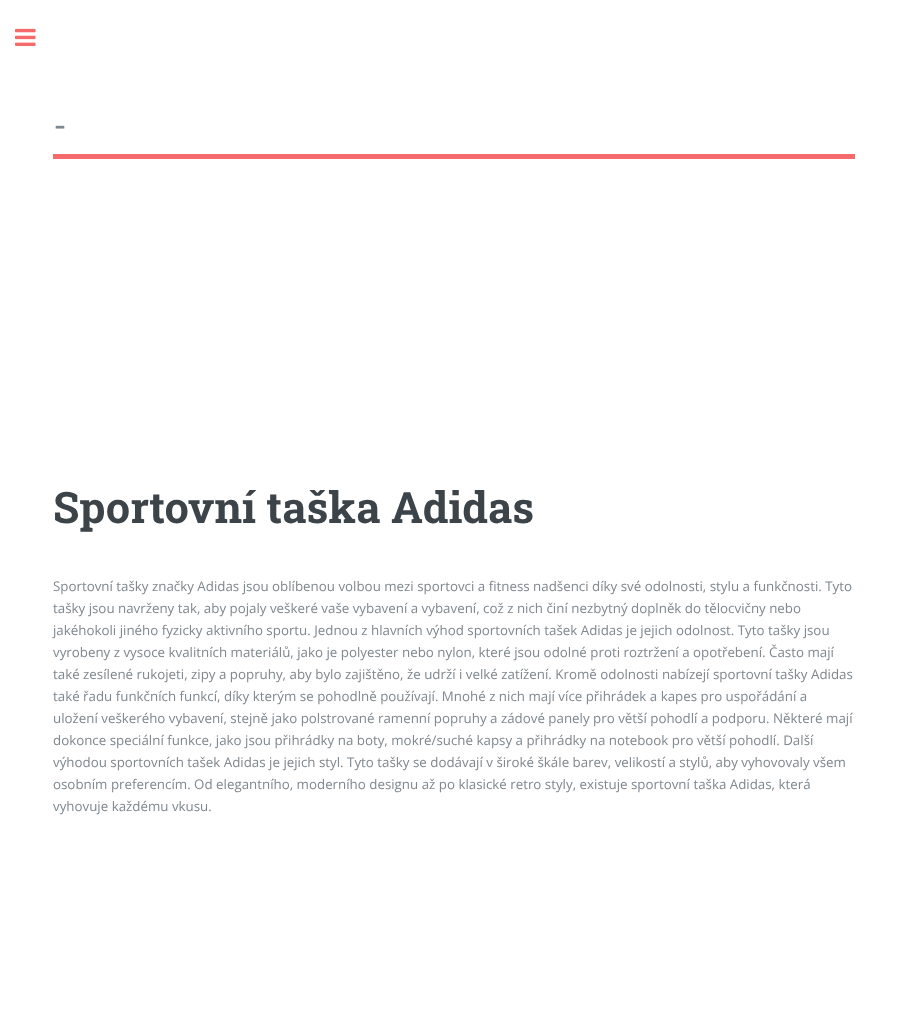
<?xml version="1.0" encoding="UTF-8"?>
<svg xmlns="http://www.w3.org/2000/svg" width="908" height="1022">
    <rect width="100%" height="100%" fill="#FFFFFF"/>
    <image x="15" y="28" width="21" height="18" href="img_01.png"/>
    <rect x="53" y="154" width="802" height="5" fill="#F56A6A"/>
    <text x="53" y="138" font-family="Roboto Slab" font-size="36" fill="#7F888F">-</text>
    <text x="53" y="523" font-family="Roboto Slab" font-size="43.25" font-weight="700" fill="#3D4449">Sportovní taška Adidas</text>
    <text font-family="Open Sans" font-size="13.33" fill="#7F888F">
        <tspan x="53" y="591">Sportovní tašky značky Adidas jsou oblíbenou volbou mezi sportovci a fitness nadšenci díky své odolnosti, stylu a funkčnosti. Tyto</tspan>
        <tspan x="53" y="613">tašky jsou navrženy tak, aby pojaly veškeré vaše vybavení a vybavení, což z nich činí nezbytný doplněk do tělocvičny nebo</tspan>
        <tspan x="53" y="635">jakéhokoli jiného fyzicky aktivního sportu. Jednou z hlavních výhod sportovních tašek Adidas je jejich odolnost. Tyto tašky jsou</tspan>
        <tspan x="53" y="657">vyrobeny z vysoce kvalitních materiálů, jako je polyester nebo nylon, které jsou odolné proti roztržení a opotřebení. Často mají</tspan>
        <tspan x="53" y="679">také zesílené rukojeti, zipy a popruhy, aby bylo zajištěno, že udrží i velké zatížení. Kromě odolnosti nabízejí sportovní tašky Adidas</tspan>
        <tspan x="53" y="701">také řadu funkčních funkcí, díky kterým se pohodlně používají. Mnohé z nich mají více přihrádek a kapes pro uspořádání a</tspan>
        <tspan x="53" y="723">uložení veškerého vybavení, stejně jako polstrované ramenní popruhy a zádové panely pro větší pohodlí a podporu. Některé mají</tspan>
        <tspan x="53" y="745">dokonce speciální funkce, jako jsou přihrádky na boty, mokré/suché kapsy a přihrádky na notebook pro větší pohodlí. Další</tspan>
        <tspan x="53" y="767">výhodou sportovních tašek Adidas je jejich styl. Tyto tašky se dodávají v široké škále barev, velikostí a stylů, aby vyhovovaly všem</tspan>
        <tspan x="53" y="789">osobním preferencím. Od elegantního, moderního designu až po klasické retro styly, existuje sportovní taška Adidas, která</tspan>
        <tspan x="53" y="811">vyhovuje každému vkusu.</tspan>
    </text>
</svg>
